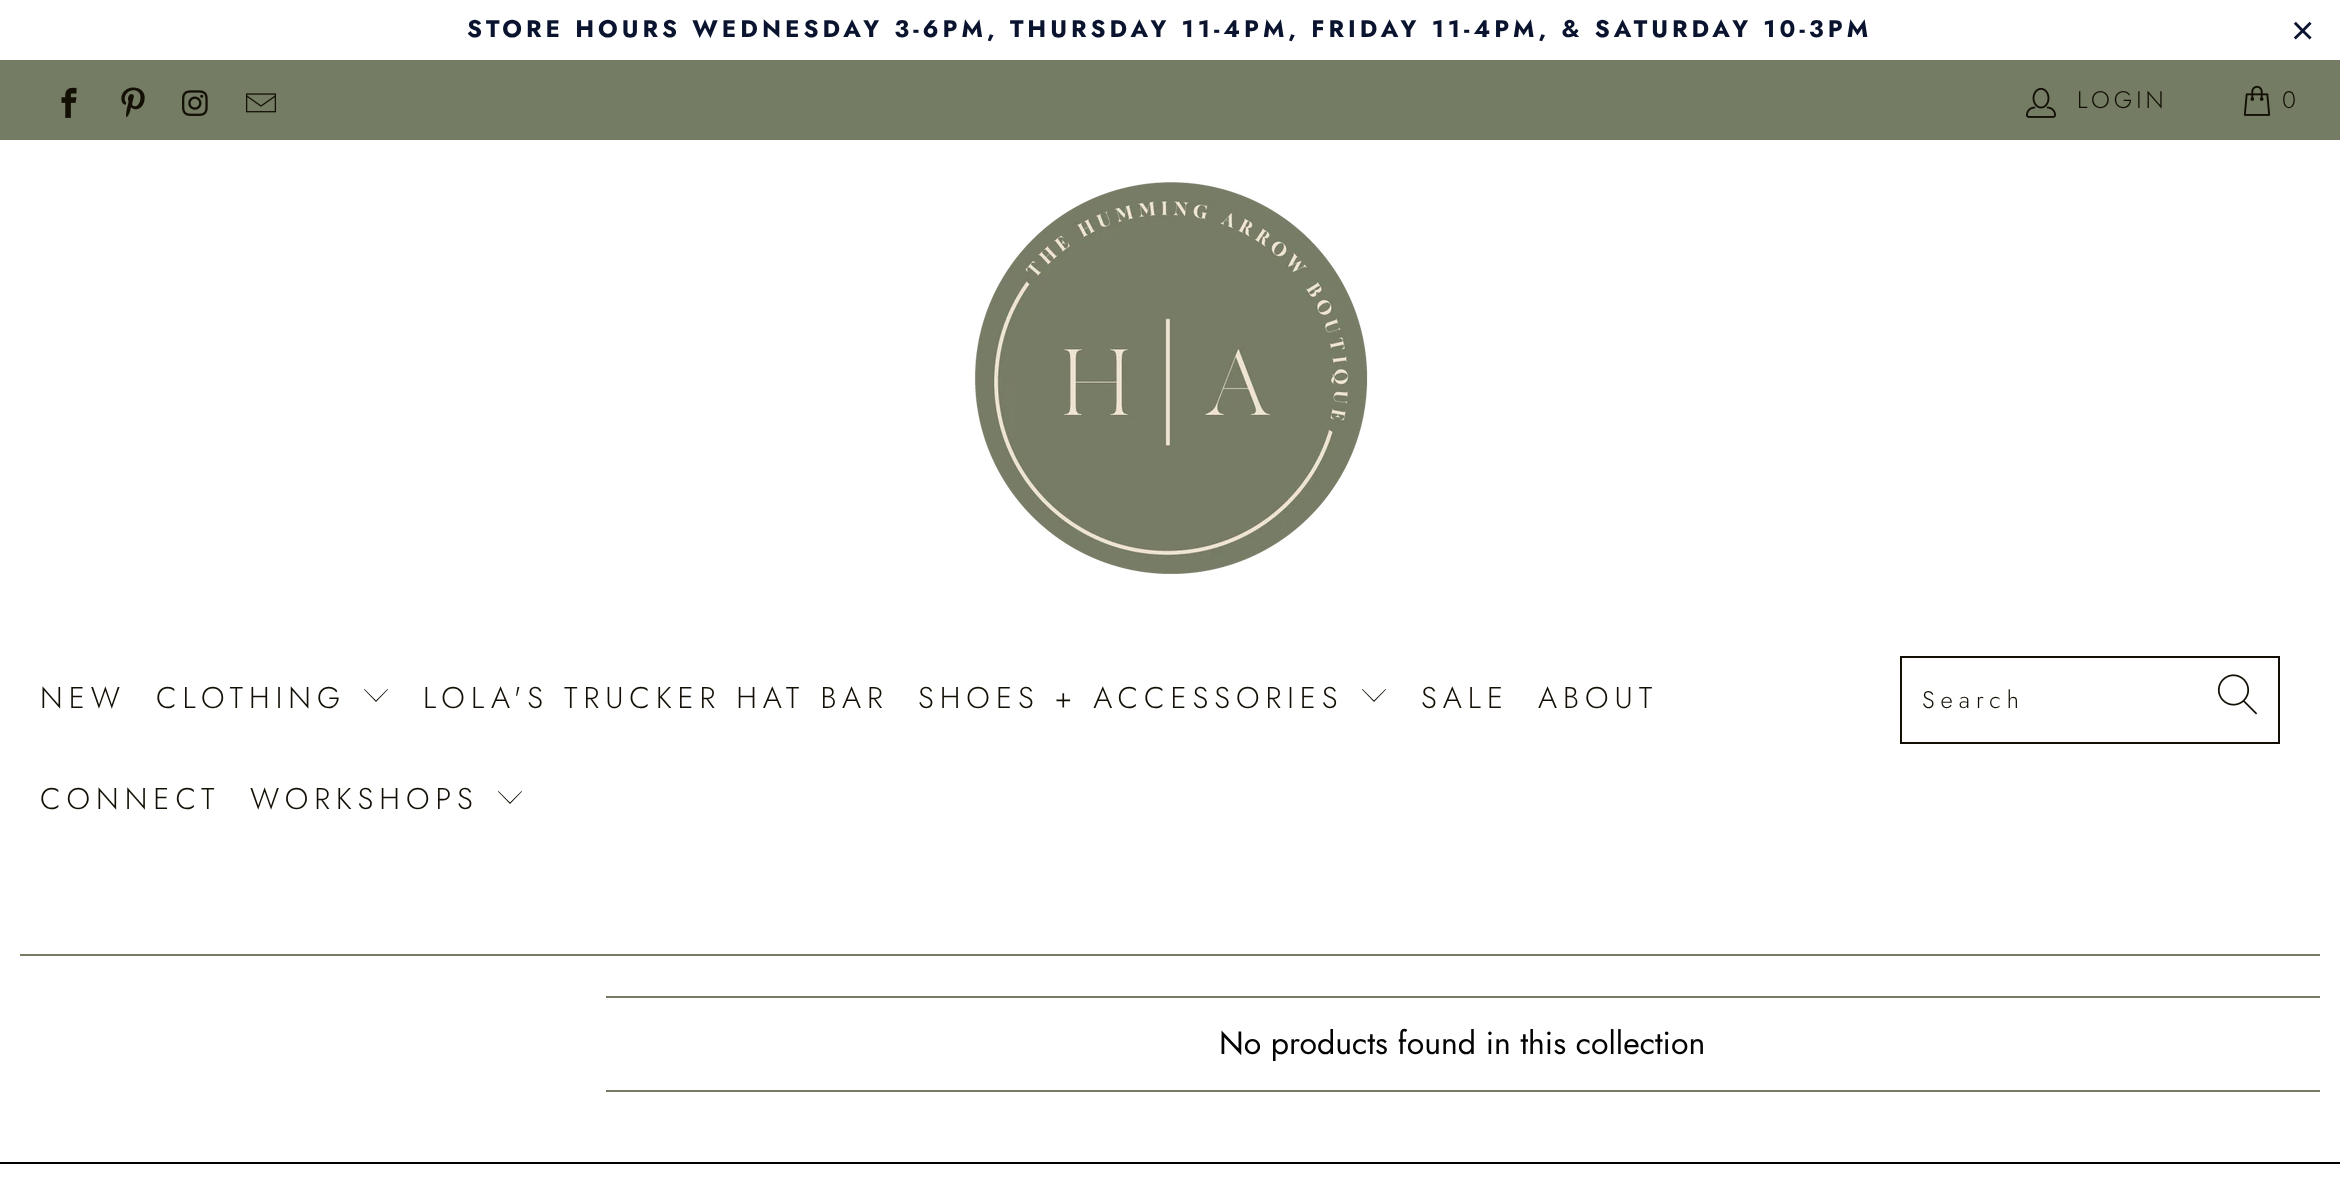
<?xml version="1.0" encoding="UTF-8"?>
<svg xmlns="http://www.w3.org/2000/svg" width="2340" height="1198">
    <rect width="100%" height="100%" fill="#FFFFFF"/>
    <text x="467" y="37" font-family="Jost" font-size="24" font-weight="700" letter-spacing="4" fill="#0A142F">STORE HOURS WEDNESDAY 3-6PM, THURSDAY 11-4PM, FRIDAY 11-4PM, &amp; SATURDAY 10-3PM</text>
    <text x="2291" y="44" font-family="Liberation Sans" font-size="40" letter-spacing="4" fill="#0A142F">×</text>
    <rect x="0" y="60" width="2340" height="80" fill="#747C64"/>
    <image x="61" y="87" width="16" height="31" href="img_01.png"/>
    <image x="121" y="87" width="24" height="31" href="img_02.png"/>
    <image x="182" y="90" width="26" height="26" href="img_03.png"/>
    <image x="246" y="93" width="30" height="20" href="img_04.png"/>
    <image x="2026" y="87" width="30" height="31" href="img_05.png"/>
    <text x="2077" y="108" font-family="Jost" font-size="24" font-weight="300" letter-spacing="4" fill="#130F05">LOGIN</text>
    <image x="2243" y="85" width="28" height="31" href="img_06.png"/>
    <text x="2282" y="108" font-family="Jost" font-size="24" font-weight="300" letter-spacing="4" fill="#130F05">0</text>
    <image x="974" y="182" width="394" height="392" href="img_07.png"/>
    <text x="40" y="708" font-family="Jost" font-size="30" font-weight="300" letter-spacing="6" fill="#130F05">NEW</text>
    <text x="156" y="708" font-family="Jost" font-size="30" font-weight="300" letter-spacing="6" fill="#130F05">CLOTHING</text>
    <path d="M 376 702 L 364 689.5 L 364.5 689 L 376 700.5 L 387.5 689 L 388 689.5 Z" fill="#130F05"/>
    <text x="423" y="708" font-family="Jost" font-size="30" font-weight="300" letter-spacing="6" fill="#130F05">LOLA'S TRUCKER HAT BAR</text>
    <text x="918" y="708" font-family="Jost" font-size="30" font-weight="300" letter-spacing="6" fill="#130F05">SHOES + ACCESSORIES</text>
    <path d="M 1374 702 L 1362 689.5 L 1362.5 689 L 1374 700.5 L 1385.5 689 L 1386 689.5 Z" fill="#130F05"/>
    <text x="1421" y="708" font-family="Jost" font-size="30" font-weight="300" letter-spacing="6" fill="#130F05">SALE</text>
    <text x="1538" y="708" font-family="Jost" font-size="30" font-weight="300" letter-spacing="6" fill="#130F05">ABOUT</text>
    <rect x="1901" y="657" width="378" height="86" fill="none" stroke="#130F05" stroke-width="2"/>
    <text x="1922" y="708" font-family="Jost" font-size="24" font-weight="300" letter-spacing="6" fill="#130F05">Search</text>
    <image x="2217" y="674" width="41" height="41" href="img_08.png"/>
    <text x="40" y="809" font-family="Jost" font-size="30" font-weight="300" letter-spacing="6" fill="#130F05">CONNECT</text>
    <text x="250" y="809" font-family="Jost" font-size="30" font-weight="300" letter-spacing="6" fill="#130F05">WORKSHOPS</text>
    <path d="M 510 804 L 498 791.5 L 498.5 791 L 510 802.5 L 521.5 791 L 522 791.5 Z" fill="#130F05"/>
    <rect x="20" y="954" width="2300" height="2" fill="#747C64"/>
    <rect x="606" y="996" width="1714" height="2" fill="#747C64"/>
    <rect x="606" y="1090" width="1714" height="2" fill="#747C64"/>
    <text x="1219" y="1054" font-family="Jost" font-size="32" fill="#030303">No products found in this collection</text>
    <rect x="0" y="1162" width="2340" height="2" fill="#000000"/>
</svg>
